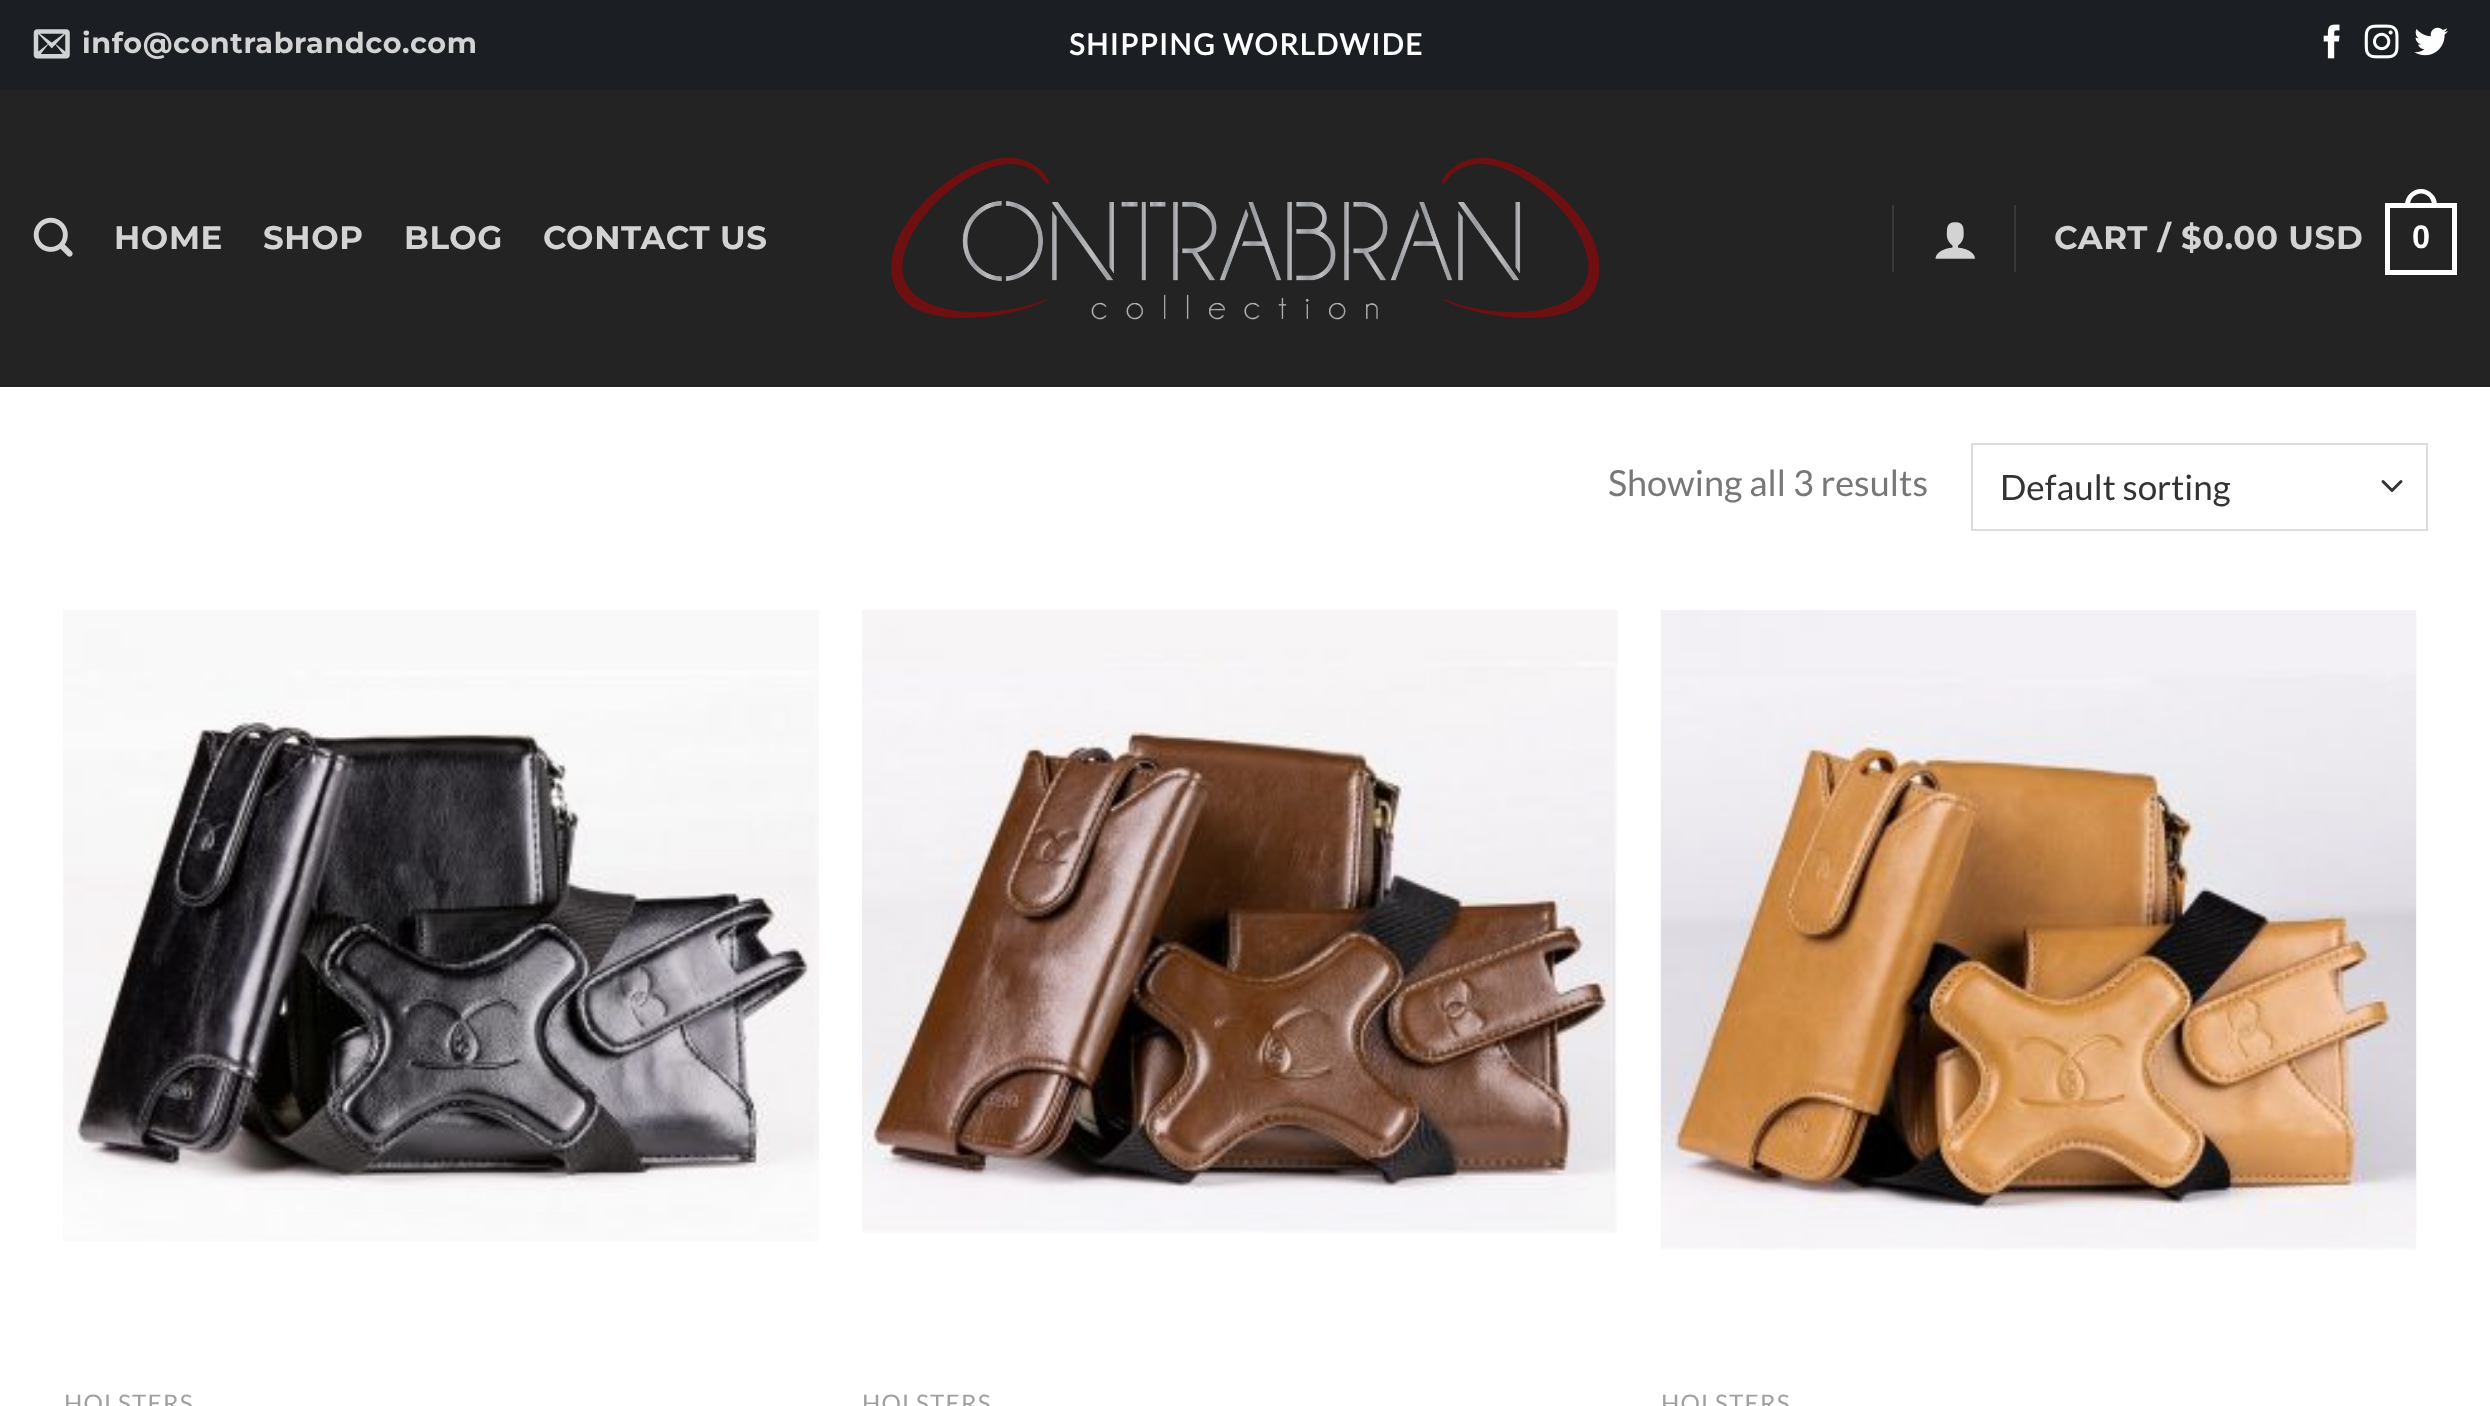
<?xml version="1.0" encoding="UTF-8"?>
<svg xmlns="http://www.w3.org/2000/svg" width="2490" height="1406">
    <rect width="100%" height="100%" fill="#FFFFFF"/>
    <rect x="0" y="0" width="2490" height="90" fill="#1B1F23"/>
    <image x="33" y="29" width="37" height="30" href="img_01.png"/>
    <text x="82" y="53" font-family="Montserrat" font-size="28.75" font-weight="700" letter-spacing="0.6" fill="#D3D3D3">info@contrabrandco.com</text>
    <text x="1069" y="55" font-family="Lato" font-size="29.25" font-weight="700" letter-spacing="1.5" fill="#FFFFFF">SHIPPING WORLDWIDE</text>
    <image x="2323" y="24" width="17" height="35" href="img_02.png"/>
    <image x="2364" y="24" width="35" height="35" href="img_03.png"/>
    <image x="2414" y="27" width="34" height="29" href="img_04.png"/>
    <rect x="0" y="90" width="2490" height="297" fill="#232323"/>
    <image x="33" y="217" width="40" height="40" href="img_05.png"/>
    <text x="114" y="249" font-family="Montserrat" font-size="32.5" font-weight="700" letter-spacing="0.6" fill="#D3D3D3">HOME</text>
    <text x="263" y="249" font-family="Montserrat" font-size="32.5" font-weight="700" letter-spacing="0.6" fill="#D3D3D3">SHOP</text>
    <text x="404" y="249" font-family="Montserrat" font-size="32.5" font-weight="700" letter-spacing="0.6" fill="#D3D3D3">BLOG</text>
    <text x="543" y="249" font-family="Montserrat" font-size="32.5" font-weight="700" letter-spacing="0.6" fill="#D3D3D3">CONTACT US</text>
    <image x="891" y="157" width="709" height="163" href="img_06.png"/>
    <rect x="1892" y="205" width="2" height="67" fill="#393939"/>
    <image x="1935" y="222" width="40" height="37" href="img_07.png"/>
    <rect x="2014" y="205" width="2" height="67" fill="#393939"/>
    <text x="2054" y="249" font-family="Montserrat" font-size="32.5" font-weight="700" letter-spacing="0.6" fill="#D3D3D3">CART / $0.00 USD</text>
    <rect x="2387.5" y="205.5" width="67" height="67" fill="none" stroke="#FFFFFF" stroke-width="5"/>
    <path d="M 2421 189 C 2429.5 189 2437 196 2437 205 V 207 H 2405 V 205 C 2405 196 2412.5 189 2421 189 Z M 2421 193.5 C 2427 193.5 2432 198.5 2432 205 V 207 H 2410 V 205 C 2410 198.5 2415 193.5 2421 193.5 Z" fill="#FFFFFF" fill-rule="evenodd"/>
    <text x="2412" y="248" font-family="Liberation Sans" font-size="32.5" font-weight="700" letter-spacing="0.6" fill="#FFFFFF">0</text>
    <text x="1608" y="496" font-family="Lato" font-size="36" fill="#777777">Showing all 3 results</text>
    <path d="M 2383 481.5 L 2392 490.5 L 2401 481.5" fill="none" stroke="#333333" stroke-width="3" stroke-linecap="round" stroke-linejoin="round"/>
    <rect x="1972" y="444" width="455" height="86" fill="none" stroke="#DDDDDD" stroke-width="2"/>
    <text x="2000" y="500" font-family="Lato" font-size="35" fill="#333333">Default sorting</text>
    <image x="63" y="610" width="756" height="632" href="img_08.png"/>
    <text x="64" y="1412" font-family="Lato" font-size="24.25" letter-spacing="1.25" fill="#A0A0A0">HOLSTERS</text>
    <image x="862" y="610" width="756" height="623" href="img_09.png"/>
    <text x="862" y="1412" font-family="Lato" font-size="24.25" letter-spacing="1.25" fill="#A0A0A0">HOLSTERS</text>
    <image x="1660" y="610" width="757" height="640" href="img_10.png"/>
    <text x="1661" y="1412" font-family="Lato" font-size="24.25" letter-spacing="1.25" fill="#A0A0A0">HOLSTERS</text>
</svg>
